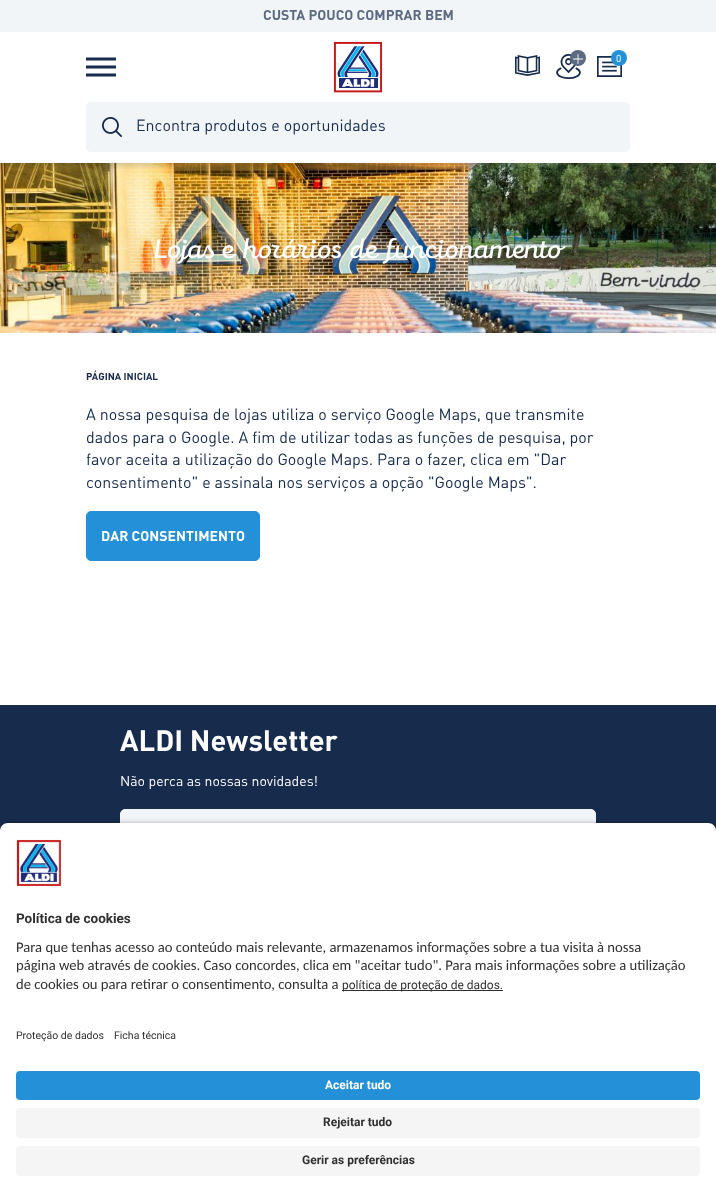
<?xml version="1.0" encoding="UTF-8"?>
<svg xmlns="http://www.w3.org/2000/svg" width="716" height="1204">
    <defs>
        <clipPath id="clip1"><rect x="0" y="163" width="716" height="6"/></clipPath>
        <filter id="blur1" x="-50%" y="-200%" width="200%" height="500%"><feGaussianBlur stdDeviation="3"/></filter>
        <filter id="blur2" x="-50%" y="-200%" width="200%" height="500%"><feGaussianBlur stdDeviation="3.5"/></filter>
    </defs>
    <rect width="100%" height="100%" fill="#FFFFFF"/>
    <rect x="0" y="0" width="716" height="32" fill="#F2F5F8"/>
    <text x="263" y="20" font-family="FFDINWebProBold" font-size="14" fill="#5C6A82">CUSTA POUCO COMPRAR BEM</text>
    <image x="0" y="163" width="716" height="170" href="img_08.png"/>
    <g clip-path="url(#clip1)">
        <rect x="0" y="35" width="716" height="131" fill="#000000" fill-opacity="0.16" filter="url(#blur1)"/>
    </g>
    <image x="86" y="57" width="30" height="20" href="img_01.png"/>
    <image x="333" y="41" width="50" height="52" href="img_02.png"/>
    <image x="515" y="55" width="25" height="21" href="img_03.png"/>
    <image x="556" y="54" width="25" height="25" href="img_05.png"/>
    <circle cx="578" cy="58" r="8" fill="#5C6A82"/>
    <image x="573" y="54" width="10" height="10" href="img_04.png"/>
    <image x="597" y="56" width="25" height="21" href="img_06.png"/>
    <circle cx="619" cy="58" r="8" fill="#2490D7"/>
    <text x="616" y="62" font-family="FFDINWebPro" font-size="10" fill="#FFFFFF">0</text>
    <rect x="86.5" y="102.5" width="543" height="49" rx="4.5" fill="#F2F5F8" stroke="#F2F5F8"/>
    <image x="102" y="117" width="20" height="20" href="img_07.png"/>
    <text x="136" y="131" font-family="FFDINWebPro" font-size="16" fill="#172B4D">Encontra produtos e oportunidades</text>
    <text x="153" y="258" font-family="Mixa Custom" font-size="28" font-weight="600" fill="#FFFFFF">Lojas e horários de funcionamento</text>
    <text x="86" y="380" font-family="FFDINWebProBold" font-size="10" fill="#172B4D">PÁGINA INICIAL</text>
    <text font-family="FFDINWebPro" font-size="16" fill="#172B4D">
        <tspan x="86" y="420">A nossa pesquisa de lojas utiliza o serviço Google Maps, que transmite</tspan>
        <tspan x="86" y="443">dados para o Google. A fim de utilizar todas as funções de pesquisa, por</tspan>
        <tspan x="86" y="465">favor aceita a utilização do Google Maps. Para o fazer, clica em "Dar</tspan>
        <tspan x="86" y="488">consentimento" e assinala nos serviços a opção "Google Maps".</tspan>
    </text>
    <rect x="86.5" y="511.5" width="173" height="49" rx="4.5" fill="#2490D7" stroke="#2490D7"/>
    <text x="101" y="541" font-family="FFDINWebProBold" font-size="14" fill="#FFFFFF">DAR CONSENTIMENTO</text>
    <rect x="0" y="705" width="716" height="126" fill="#172B4D"/>
    <text x="120" y="751" font-family="FFDINWebProBold" font-size="29" fill="#FFFFFF">ALDI Newsletter</text>
    <text x="120" y="786" font-family="FFDINWebPro" font-size="14" fill="#FFFFFF">Não perca as nossas novidades!</text>
    <rect x="120.5" y="809.5" width="475" height="49" rx="4.5" fill="#F2F5F8" stroke="#F2F5F8"/>
    <rect x="0" y="826" width="716" height="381" rx="8" fill="#000000" fill-opacity="0.8" filter="url(#blur2)"/>
    <path d="M 8 823 H 708 C 712.5 823 716 826.5 716 831 V 1013 H 0 V 831 C 0 826.5 3.5 823 8 823 Z" fill="#FFFFFF"/>
    <image x="16" y="839" width="45" height="47" href="img_09.png"/>
    <text x="16" y="923" font-family="Roboto" font-size="13.5" font-weight="700" fill="#303030">Política de cookies</text>
    <text font-family="Carlito" font-size="14.65" fill="#303030">
        <tspan x="16" y="952">Para que tenhas acesso ao conteúdo mais relevante, armazenamos informações sobre a tua visita à nossa</tspan>
        <tspan x="16" y="970">página web através de cookies. Caso concordes, clica em "aceitar tudo". Para mais informações sobre a utilização</tspan>
        <tspan x="16" y="989">de cookies ou para retirar o consentimento, consulta a</tspan>
    </text>
    <rect x="342" y="990" width="161" height="1" fill="#303030"/>
    <text x="342" y="989" font-family="Roboto" font-size="12" fill="#303030">política de proteção de dados.</text>
    <rect x="0" y="1013" width="716" height="191" fill="#FFFFFF"/>
    <text x="16" y="1039" font-family="Roboto" font-size="10.5" fill="#303030">Proteção de dados</text>
    <text x="114" y="1039" font-family="Roboto" font-size="10.5" fill="#303030">Ficha técnica</text>
    <rect x="16" y="1071" width="684" height="29" rx="4" fill="#2490D7"/>
    <text x="325" y="1089" font-family="Roboto" font-size="12" font-weight="700" fill="#FFFFFF">Aceitar tudo</text>
    <rect x="16" y="1108" width="684" height="30" rx="4" fill="#F5F5F5"/>
    <text x="323" y="1126" font-family="Roboto" font-size="12" font-weight="700" fill="#303030">Rejeitar tudo</text>
    <rect x="16" y="1146" width="684" height="30" rx="4" fill="#F5F5F5"/>
    <text x="302" y="1164" font-family="Roboto" font-size="12" font-weight="700" fill="#303030">Gerir as preferências</text>
</svg>
